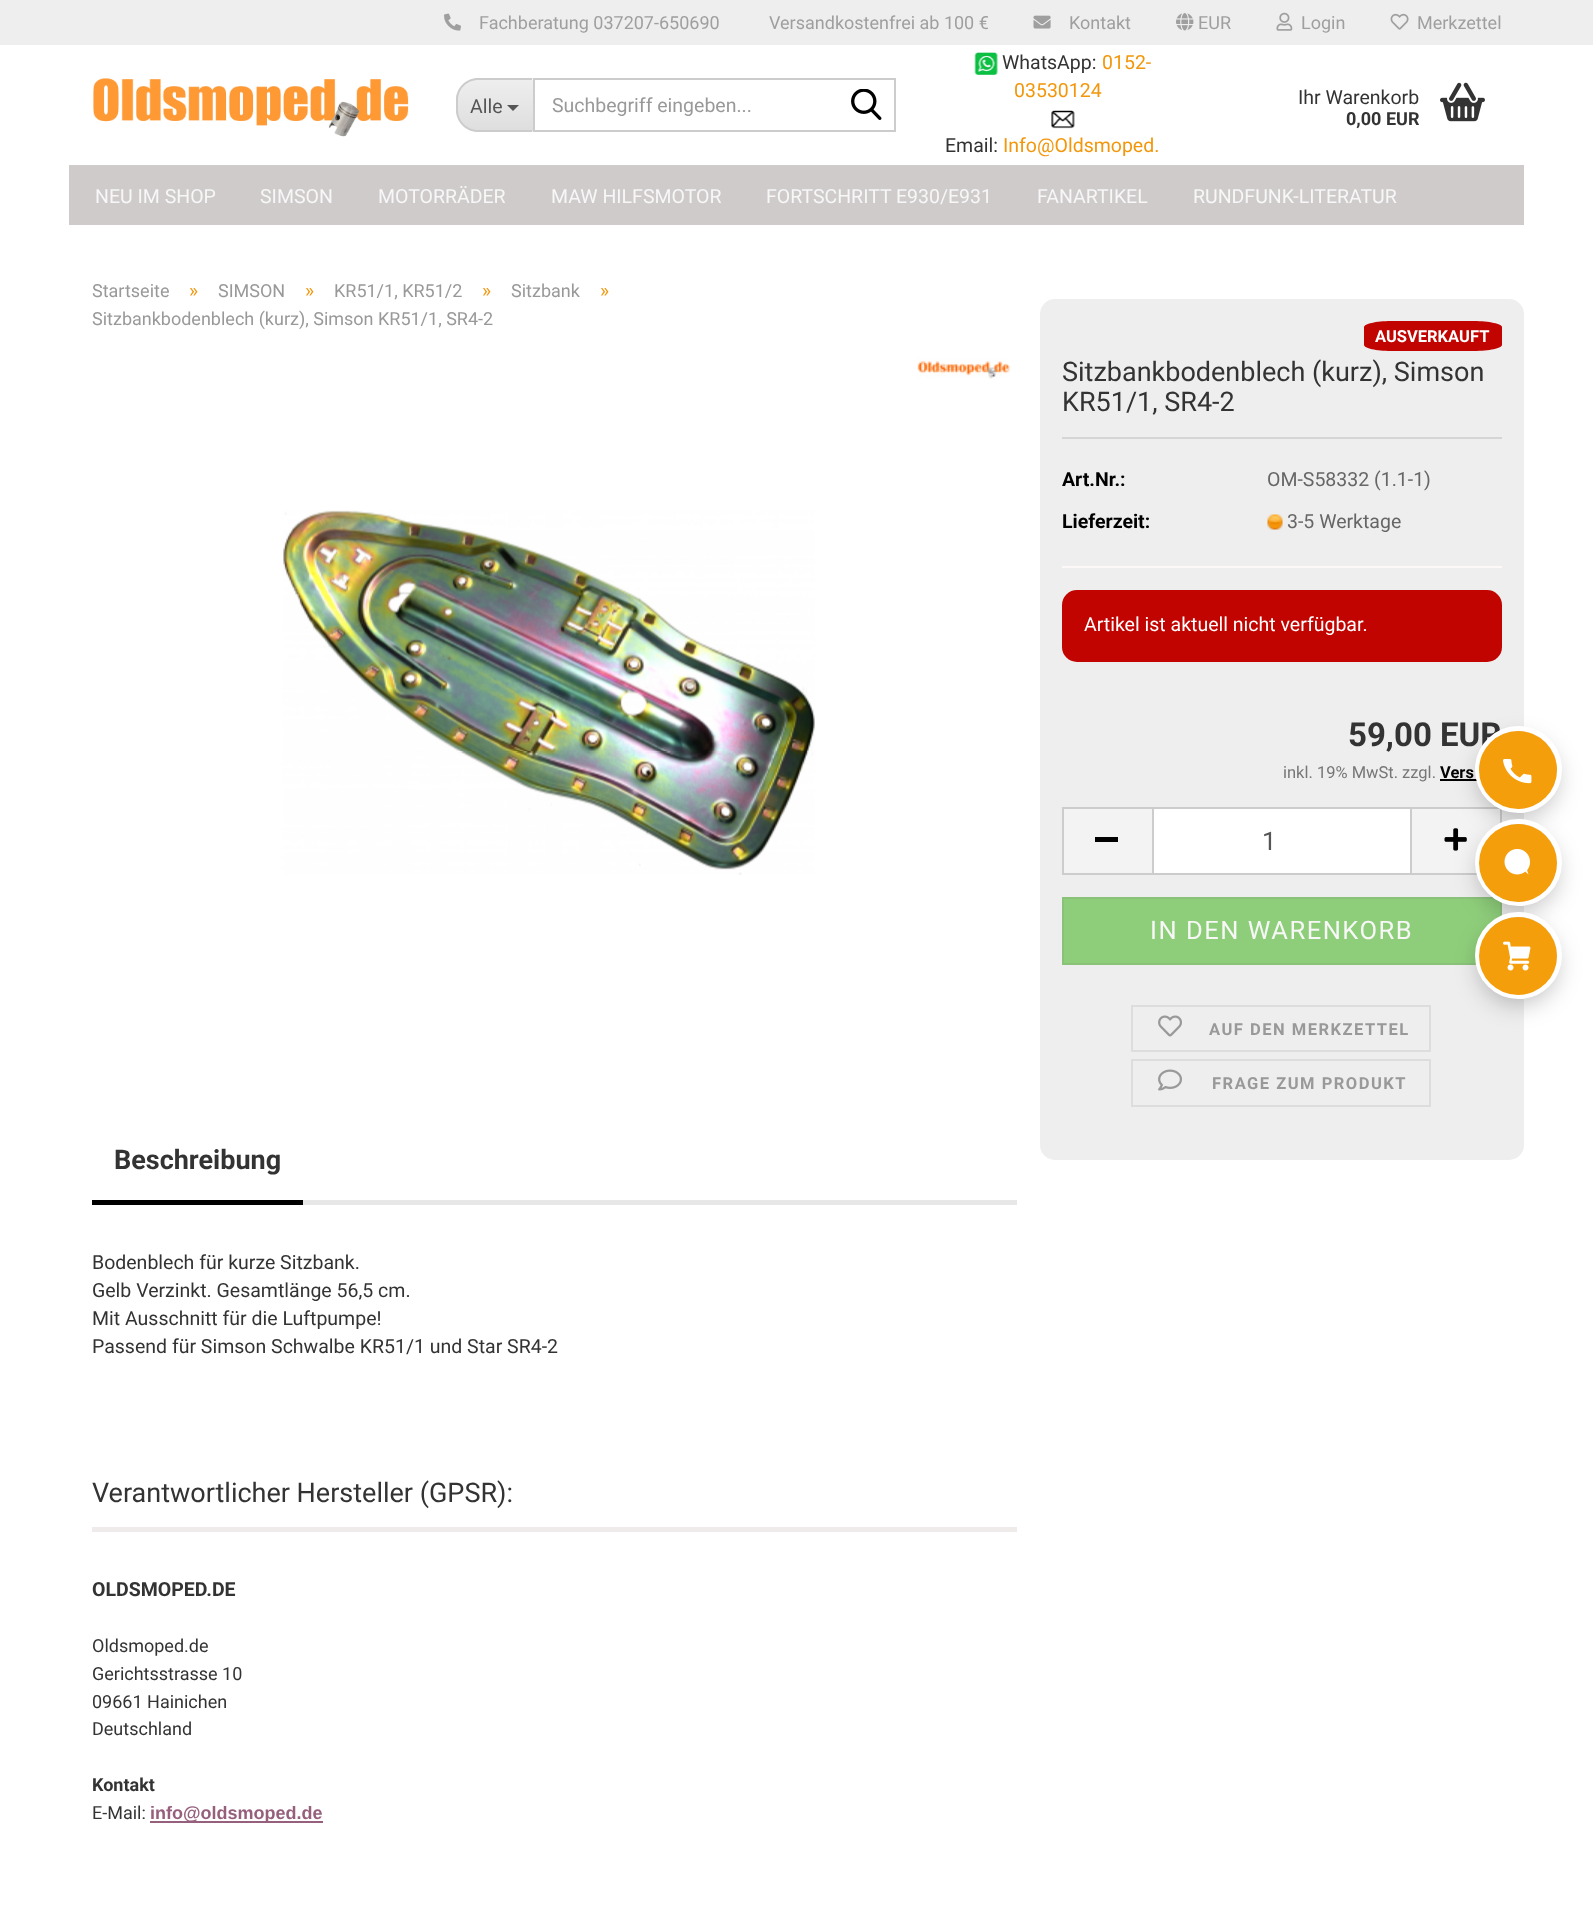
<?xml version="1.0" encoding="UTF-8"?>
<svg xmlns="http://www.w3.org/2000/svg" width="1593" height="1917">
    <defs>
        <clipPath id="clip1"><path d="M 479 78 H 533 V 132 H 479 C 466.5 132 456 121.5 456 109 V 101 C 456 88.5 466.5 78 479 78 Z"/></clipPath>
        <linearGradient id="g1" gradientUnits="userSpaceOnUse" x1="495" y1="80" x2="495" y2="131"><stop offset="0" stop-color="#EEEEEE"/><stop offset="1" stop-color="#DEDEDE"/></linearGradient>
        <filter id="blur1" x="-50%" y="-200%" width="200%" height="500%"><feGaussianBlur stdDeviation="12"/></filter>
    </defs>
    <rect width="100%" height="100%" fill="#FFFFFF"/>
    <rect x="0" y="0" width="1593" height="45" fill="#EEEEEE"/>
    <image x="444" y="13" width="17" height="18" href="img_01.png"/>
    <text x="479" y="29" font-family="Roboto" font-size="18" fill="#9F9F9F">Fachberatung 037207-650690</text>
    <text x="769" y="29" font-family="Roboto" font-size="18" fill="#9F9F9F">Versandkostenfrei ab 100 €</text>
    <image x="1033" y="15" width="18" height="14" href="img_02.png"/>
    <text x="1069" y="29" font-family="Roboto" font-size="18" fill="#9F9F9F">Kontakt</text>
    <image x="1176" y="13" width="18" height="18" href="img_03.png"/>
    <text x="1198" y="29" font-family="Roboto" font-size="18" fill="#9F9F9F">EUR</text>
    <image x="1276" y="12" width="17" height="19" href="img_04.png"/>
    <text x="1301" y="29" font-family="Roboto" font-size="18" fill="#9F9F9F">Login</text>
    <image x="1390" y="13" width="19" height="17" href="img_05.png"/>
    <text x="1417" y="29" font-family="Roboto" font-size="18" fill="#9F9F9F">Merkzettel</text>
    <image x="93" y="78" width="316" height="59" href="img_06.png"/>
    <path d="M 479 78 H 533 V 132 H 479 C 466.5 132 456 121.5 456 109 V 101 C 456 88.5 466.5 78 479 78 Z" fill="#F3F3F3"/>
    <g clip-path="url(#clip1)">
        <rect x="456" y="80" width="77" height="51" fill="url(#g1)"/>
    </g>
    <path d="M 478 78 H 532 V 132 H 478 C 466 132 456 122 456 110 V 100 C 456 88 466 78 478 78 Z M 478 80 H 532 V 130 H 478 C 467 130 458 121 458 110 V 100 C 458 89 467 80 478 80 Z" fill="#CCCCCC" fill-rule="evenodd"/>
    <text x="470" y="113" font-family="Roboto" font-size="19.5" fill="#555555">Alle</text>
    <path d="M 507 105 H 519 L 513 111 Z" fill="#555555"/>
    <rect x="534" y="79" width="361" height="52" fill="none" stroke="#CCCCCC" stroke-width="2"/>
    <text x="552" y="112" font-family="Roboto" font-size="19.5" fill="#999999">Suchbegriff eingeben...</text>
    <image x="851" y="89" width="31" height="31" href="img_07.png"/>
    <image x="974" y="52" width="24" height="23" href="img_08.png"/>
    <text x="1002" y="69" font-family="Roboto" font-size="19.5" fill="#333333">WhatsApp:</text>
    <text x="1102" y="69" font-family="Roboto" font-size="19.5" fill="#F2970B">0152-</text>
    <text x="1014" y="97" font-family="Roboto" font-size="19.5" fill="#F2970B">03530124</text>
    <image x="1051" y="110" width="24" height="19" href="img_09.png"/>
    <text x="945" y="152" font-family="Roboto" font-size="19.5" fill="#333333">Email:</text>
    <text x="1003" y="152" font-family="Roboto" font-size="19.5" fill="#F2970B">Info@Oldsmoped.</text>
    <text x="1298" y="104" font-family="Roboto" font-size="19.5" fill="#333333">Ihr Warenkorb</text>
    <text x="1346" y="125" font-family="Roboto" font-size="18" font-weight="700" fill="#333333">0,00 EUR</text>
    <image x="1440" y="82" width="45" height="40" href="img_10.png"/>
    <rect x="69" y="165" width="1455" height="60" fill="#CFCBCB"/>
    <text x="95" y="203" font-family="Roboto" font-size="19.5" fill="#F7F7F7">NEU IM SHOP</text>
    <text x="260" y="203" font-family="Roboto" font-size="19.5" fill="#F7F7F7">SIMSON</text>
    <text x="378" y="203" font-family="Roboto" font-size="19.5" fill="#F7F7F7">MOTORRÄDER</text>
    <text x="551" y="203" font-family="Roboto" font-size="19.5" fill="#F7F7F7">MAW HILFSMOTOR</text>
    <text x="766" y="203" font-family="Roboto" font-size="19.5" fill="#F7F7F7">FORTSCHRITT E930/E931</text>
    <text x="1037" y="203" font-family="Roboto" font-size="19.5" fill="#F7F7F7">FANARTIKEL</text>
    <text x="1193" y="203" font-family="Roboto" font-size="19.5" fill="#F7F7F7">RUNDFUNK-LITERATUR</text>
    <text x="92" y="297" font-family="Roboto" font-size="18" fill="#999999">Startseite</text>
    <text x="189" y="297" font-family="Roboto" font-size="19.5" fill="#F2970B">»</text>
    <text x="218" y="297" font-family="Roboto" font-size="18" fill="#999999">SIMSON</text>
    <text x="305" y="297" font-family="Roboto" font-size="19.5" fill="#F2970B">»</text>
    <text x="334" y="297" font-family="Roboto" font-size="18" fill="#999999">KR51/1, KR51/2</text>
    <text x="482" y="297" font-family="Roboto" font-size="19.5" fill="#F2970B">»</text>
    <text x="511" y="297" font-family="Roboto" font-size="18" fill="#999999">Sitzbank</text>
    <text x="600" y="297" font-family="Roboto" font-size="19.5" fill="#F2970B">»</text>
    <text x="92" y="325" font-family="Roboto" font-size="18" fill="#999999">Sitzbankbodenblech (kurz), Simson KR51/1, SR4-2</text>
    <image x="917" y="357" width="93" height="22" href="img_11.png"/>
    <image x="283" y="510" width="532" height="365" href="img_12.png"/>
    <rect x="1040" y="299" width="484" height="861" rx="15" fill="#EEEEEE"/>
    <path d="M 1391 321 H 1474 C 1489 321 1502 324 1502 327 V 345 C 1502 348 1489 351 1474 351 H 1391 C 1376 351 1364 348 1364 345 V 327 C 1364 324 1376 321 1391 321 Z" fill="#C20400"/>
    <text x="1375" y="342" font-family="Roboto" font-size="16.5" font-weight="700" fill="#FFFFFF">AUSVERKAUFT</text>
    <rect x="1062" y="437" width="440" height="2" fill="#D5D5D5"/>
    <text font-family="Roboto" font-size="27" fill="#333333">
        <tspan x="1062" y="381">Sitzbankbodenblech (kurz), Simson</tspan>
        <tspan x="1062" y="411">KR51/1, SR4-2</tspan>
    </text>
    <rect x="1062" y="566" width="440" height="2" fill="#FCF8F8"/>
    <text x="1062" y="486" font-family="Roboto" font-size="19.5" font-weight="700" fill="#000000">Art.Nr.:</text>
    <text x="1267" y="486" font-family="Roboto" font-size="19.5" fill="#666666">OM-S58332 (1.1-1)</text>
    <text x="1062" y="528" font-family="Roboto" font-size="19.5" font-weight="700" fill="#000000">Lieferzeit:</text>
    <image x="1267" y="514" width="16" height="16" href="img_13.png"/>
    <text x="1287" y="528" font-family="Roboto" font-size="19.5" fill="#666666">3-5 Werktage</text>
    <rect x="1062" y="590" width="440" height="72" rx="15" fill="#C20400"/>
    <text x="1084" y="631" font-family="Roboto" font-size="19.5" fill="#FFFFFF">Artikel ist aktuell nicht verfügbar.</text>
    <text x="1348" y="746" font-family="Roboto" font-size="33" font-weight="700" fill="#333333">59,00 EUR</text>
    <text x="1283" y="778" font-family="Roboto" font-size="16.5" fill="#777777">inkl. 19% MwSt. zzgl.</text>
    <text x="1440" y="778" font-family="Roboto" font-size="16.5" font-weight="700" fill="#000000">Vers</text>
    <rect x="1440" y="779" width="37" height="2" fill="#000000"/>
    <rect x="1064" y="809" width="88" height="64" fill="#F3F3F3"/>
    <rect x="1062" y="807" width="90" height="2" fill="#CCCCCC"/>
    <rect x="1062" y="873" width="90" height="2" fill="#CCCCCC"/>
    <rect x="1062" y="807" width="2" height="68" fill="#CCCCCC"/>
    <rect x="1095" y="837" width="23" height="5" fill="#000000"/>
    <rect x="1153" y="808" width="258" height="66" fill="#FFFFFF" stroke="#CCCCCC" stroke-width="2"/>
    <text x="1262" y="850" font-family="Roboto" font-size="25.5" fill="#555555">1</text>
    <rect x="1412" y="809" width="88" height="64" fill="#F3F3F3"/>
    <rect x="1412" y="807" width="90" height="2" fill="#CCCCCC"/>
    <rect x="1500" y="807" width="2" height="22" fill="#CCCCCC"/>
    <rect x="1412" y="873" width="65" height="2" fill="#CCCCCC"/>
    <image x="1444" y="828" width="23" height="23" href="img_14.png"/>
    <rect x="1063" y="898" width="438" height="66" fill="#8ECE7A" stroke="#8BC27A" stroke-width="2"/>
    <text x="1150" y="939" font-family="Roboto" font-size="25.5" letter-spacing="1.5" fill="#F7F7F7">IN DEN WARENKORB</text>
    <rect x="1132" y="1006" width="298" height="45" fill="none" stroke="#DDDDDD" stroke-width="2"/>
    <image x="1158" y="1015" width="24" height="22" href="img_15.png"/>
    <text x="1209" y="1035" font-family="Roboto" font-size="16.5" font-weight="700" letter-spacing="1.5" fill="#999999">AUF DEN MERKZETTEL</text>
    <rect x="1132" y="1060" width="298" height="46" fill="none" stroke="#DDDDDD" stroke-width="2"/>
    <image x="1158" y="1069" width="24" height="22" href="img_16.png"/>
    <text x="1212" y="1089" font-family="Roboto" font-size="16.5" font-weight="700" letter-spacing="1.5" fill="#999999">FRAGE ZUM PRODUKT</text>
    <rect x="303" y="1200" width="714" height="5" fill="#E7E7E7"/>
    <rect x="92" y="1200" width="211" height="5" fill="#000000"/>
    <text x="114" y="1169" font-family="Roboto" font-size="27" font-weight="700" fill="#333333">Beschreibung</text>
    <text font-family="Roboto" font-size="19.5" fill="#333333">
        <tspan x="92" y="1269">Bodenblech für kurze Sitzbank.</tspan>
        <tspan x="92" y="1297">Gelb Verzinkt. Gesamtlänge 56,5 cm.</tspan>
        <tspan x="92" y="1325">Mit Ausschnitt für die Luftpumpe!</tspan>
        <tspan x="92" y="1353">Passend für Simson Schwalbe KR51/1 und Star SR4-2</tspan>
    </text>
    <rect x="92" y="1527" width="925" height="5" fill="#F0EBEB"/>
    <text x="92" y="1502" font-family="Roboto" font-size="27" fill="#333333">Verantwortlicher Hersteller (GPSR):</text>
    <text x="92" y="1596" font-family="Roboto" font-size="19.5" font-weight="700" fill="#333333">OLDSMOPED.DE</text>
    <text font-family="Roboto" font-size="18" fill="#333333">
        <tspan x="92" y="1652">Oldsmoped.de</tspan>
        <tspan x="92" y="1680">Gerichtsstrasse 10</tspan>
        <tspan x="92" y="1708">09661 Hainichen</tspan>
        <tspan x="92" y="1735">Deutschland</tspan>
    </text>
    <text x="92" y="1791" font-family="Roboto" font-size="18" font-weight="700" fill="#333333">Kontakt</text>
    <text x="92" y="1819" font-family="Roboto" font-size="18" fill="#333333">E-Mail:</text>
    <rect x="150" y="1821" width="173" height="2" fill="#96607D"/>
    <text x="150" y="1819" font-family="Liberation Sans" font-size="18" font-weight="700" fill="#96607D">info@oldsmoped.de</text>
    <rect x="1479" y="740" width="78" height="78" rx="39" fill="#000000" fill-opacity="0.25" filter="url(#blur1)"/>
    <circle cx="1518.5" cy="769.5" r="41" fill="none" stroke="#FFFFFF" stroke-width="5"/>
    <circle cx="1518" cy="770" r="39" fill="#F59E0B"/>
    <image x="1503" y="759" width="29" height="25" href="img_17.png"/>
    <rect x="1479" y="833" width="78" height="78" rx="39" fill="#000000" fill-opacity="0.25" filter="url(#blur1)"/>
    <circle cx="1518.5" cy="862.5" r="41" fill="none" stroke="#FFFFFF" stroke-width="5"/>
    <circle cx="1518" cy="863" r="39" fill="#F59E0B"/>
    <image x="1504" y="849" width="26" height="26" href="img_18.png"/>
    <rect x="1479" y="926" width="78" height="78" rx="39" fill="#000000" fill-opacity="0.25" filter="url(#blur1)"/>
    <circle cx="1518.5" cy="955.5" r="41" fill="none" stroke="#FFFFFF" stroke-width="5"/>
    <circle cx="1518" cy="956" r="39" fill="#F59E0B"/>
    <image x="1503" y="941" width="28" height="30" href="img_19.png"/>
</svg>
